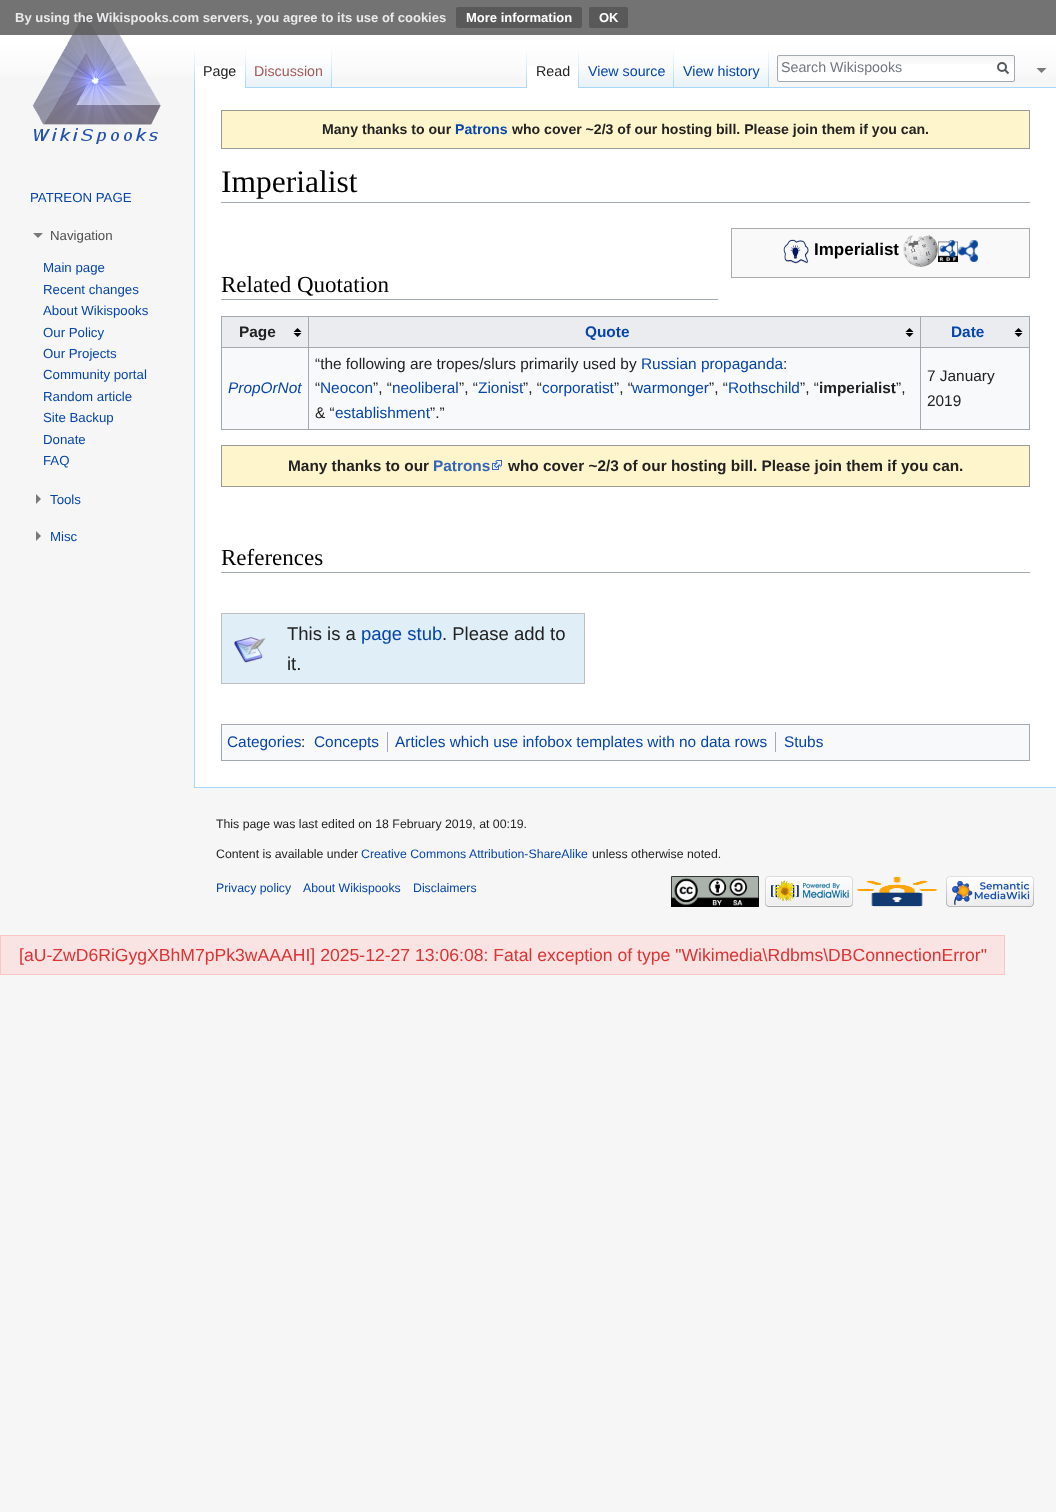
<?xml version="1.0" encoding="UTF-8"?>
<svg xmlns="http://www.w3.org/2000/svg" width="1056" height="1512">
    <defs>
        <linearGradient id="g1" gradientUnits="userSpaceOnUse" x1="528" y1="0" x2="528" y2="88"><stop offset="0.5" stop-color="#FFFFFF"/><stop offset="1" stop-color="#F6F6F6"/></linearGradient>
    </defs>
    <rect width="100%" height="100%" fill="#F6F6F6"/>
    <rect x="0" y="0" width="1056" height="76" fill="url(#g1)"/>
    <image x="32" y="13" width="129" height="131" href="img_08.png"/>
    <rect x="0" y="0" width="1056" height="35" fill="#5A5A5A" fill-opacity="0.85"/>
    <text x="15" y="22" font-family="Liberation Sans" font-size="13" font-weight="700" fill="#EAEAEA">By using the Wikispooks.com servers, you agree to its use of cookies</text>
    <rect x="456" y="7" width="126" height="21" rx="2" fill="#595959"/>
    <text x="466" y="22" font-family="Liberation Sans" font-size="13" font-weight="700" fill="#FFFFFF">More information</text>
    <rect x="589" y="7" width="39" height="21" rx="2" fill="#595959"/>
    <text x="599" y="22" font-family="Liberation Sans" font-size="13" font-weight="700" fill="#FFFFFF">OK</text>
    <image x="194" y="50" width="1" height="37" href="img_01.png"/>
    <rect x="195" y="66" width="50" height="22" fill="#FFFFFF"/>
    <image x="245" y="50" width="1" height="38" href="img_02.png"/>
    <text x="203" y="76" font-family="Liberation Sans" font-size="14.25" fill="#222222">Page</text>
    <image x="246" y="50" width="85" height="37" href="img_03.png"/>
    <image x="331" y="50" width="1" height="37" href="img_01.png"/>
    <text x="254" y="76" font-family="Liberation Sans" font-size="14.25" fill="#A55858">Discussion</text>
    <image x="526" y="50" width="1" height="37" href="img_01.png"/>
    <rect x="246" y="87" width="810" height="1" fill="#A7D7F9"/>
    <rect x="527" y="66" width="51" height="22" fill="#FFFFFF"/>
    <image x="578" y="50" width="1" height="38" href="img_02.png"/>
    <text x="536" y="76" font-family="Liberation Sans" font-size="14.25" fill="#222222">Read</text>
    <image x="579" y="70" width="94" height="17" href="img_04.png"/>
    <image x="673" y="50" width="1" height="37" href="img_01.png"/>
    <text x="588" y="76" font-family="Liberation Sans" font-size="14.25" fill="#0645AD">View source</text>
    <image x="674" y="50" width="94" height="37" href="img_05.png"/>
    <image x="768" y="50" width="1" height="37" href="img_01.png"/>
    <text x="683" y="76" font-family="Liberation Sans" font-size="14.25" fill="#0645AD">View history</text>
    <rect x="777" y="55" width="238" height="27" rx="2" fill="#FFFFFF"/>
    <image x="777" y="56" width="238" height="8" href="img_06.png"/>
    <rect x="777.5" y="55.5" width="237" height="26" rx="1.5" fill="none" stroke="#A2A9B1"/>
    <text x="781" y="72" font-family="Liberation Sans" font-size="14.25" fill="#72777D">Search Wikispooks</text>
    <path d="M 1008.5 73.5 L 1004.5 69.5" fill="none" stroke="#54595D" stroke-width="2"/>
    <circle cx="1002" cy="67" r="4" fill="none" stroke="#54595D" stroke-width="2"/>
    <image x="1036" y="68" width="11" height="5" href="img_07.png"/>
    <text x="30" y="202" font-family="Liberation Sans" font-size="13.25" fill="#0645AD">PATREON PAGE</text>
    <path d="M 43 233 L 38 238 L 33 233 Z" fill="#797979"/>
    <text x="50" y="240" font-family="Liberation Sans" font-size="13.25" fill="#4D4D4D">Navigation</text>
    <text font-family="Liberation Sans" font-size="13.25" fill="#0645AD">
        <tspan x="43" y="272">Main page</tspan>
        <tspan x="43" y="294">Recent changes</tspan>
        <tspan x="43" y="315">About Wikispooks</tspan>
        <tspan x="43" y="337">Our Policy</tspan>
        <tspan x="43" y="358">Our Projects</tspan>
        <tspan x="43" y="379">Community portal</tspan>
        <tspan x="43" y="401">Random article</tspan>
        <tspan x="43" y="422">Site Backup</tspan>
        <tspan x="43" y="444">Donate</tspan>
        <tspan x="43" y="465">FAQ</tspan>
    </text>
    <path d="M 36 494 L 41 499 L 36 504 Z" fill="#797979"/>
    <text x="50" y="504" font-family="Liberation Sans" font-size="13.25" fill="#0645AD">Tools</text>
    <path d="M 36 531 L 41 536 L 36 541 Z" fill="#797979"/>
    <text x="50" y="541" font-family="Liberation Sans" font-size="13.25" fill="#0645AD">Misc</text>
    <rect x="195" y="88" width="861" height="699" fill="#FFFFFF"/>
    <rect x="194" y="787" width="862" height="1" fill="#A7D7F9"/>
    <rect x="194" y="87" width="1" height="701" fill="#A7D7F9"/>
    <rect x="221.5" y="110.5" width="808" height="38" fill="#FFF5CC" stroke="#9A9A9A"/>
    <text x="322" y="134" font-family="Liberation Sans" font-size="14.1" font-weight="700" fill="#222222">Many thanks to our</text>
    <text x="455" y="134" font-family="Liberation Sans" font-size="14.1" font-weight="700" fill="#0645AD">Patrons</text>
    <text x="512" y="134" font-family="Liberation Sans" font-size="14.1" font-weight="700" fill="#222222">who cover ~2/3 of our hosting bill. Please join them if you can.</text>
    <rect x="221" y="202" width="809" height="1" fill="#A2A9B1"/>
    <text x="221" y="192" font-family="Liberation Serif" font-size="31.5" fill="#000000">Imperialist</text>
    <rect x="731.5" y="228.5" width="298" height="49" fill="#F9F9F9" stroke="#AAAAAA"/>
    <image x="783" y="239" width="26" height="25" href="img_09.png"/>
    <text x="814" y="255" font-family="Liberation Sans" font-size="17" font-weight="700" fill="#000000">Imperialist</text>
    <image x="903" y="235" width="35" height="32" href="img_10.png"/>
    <image x="938" y="240" width="20" height="22" href="img_11.png"/>
    <image x="958" y="240" width="20" height="22" href="img_12.png"/>
    <rect x="221" y="299" width="497" height="1" fill="#A2A9B1"/>
    <text x="221" y="292" font-family="Liberation Serif" font-size="23" fill="#000000">Related Quotation</text>
    <rect x="222" y="348" width="807" height="81" fill="#F8F9FA"/>
    <rect x="221" y="316" width="809" height="1" fill="#A2A9B1"/>
    <rect x="1029" y="316" width="1" height="114" fill="#A2A9B1"/>
    <rect x="221" y="429" width="809" height="1" fill="#A2A9B1"/>
    <rect x="221" y="316" width="1" height="114" fill="#A2A9B1"/>
    <rect x="222" y="317" width="86" height="30" fill="#EAECF0"/>
    <image x="293" y="328" width="9" height="9" href="img_13.png"/>
    <text x="239" y="337" font-family="Liberation Sans" font-size="15.4" font-weight="700" fill="#222222">Page</text>
    <rect x="309" y="317" width="611" height="30" fill="#EAECF0"/>
    <image x="905" y="328" width="9" height="9" href="img_13.png"/>
    <rect x="920" y="347" width="110" height="1" fill="#A2A9B1"/>
    <rect x="920" y="347" width="1" height="83" fill="#A2A9B1"/>
    <rect x="308" y="347" width="613" height="1" fill="#A2A9B1"/>
    <rect x="308" y="347" width="1" height="83" fill="#A2A9B1"/>
    <rect x="221" y="347" width="88" height="1" fill="#A2A9B1"/>
    <rect x="308" y="316" width="1" height="32" fill="#A2A9B1"/>
    <text x="585" y="337" font-family="Liberation Sans" font-size="15.4" font-weight="700" fill="#0645AD">Quote</text>
    <rect x="921" y="317" width="108" height="30" fill="#EAECF0"/>
    <image x="1014" y="328" width="9" height="9" href="img_13.png"/>
    <rect x="920" y="316" width="1" height="32" fill="#A2A9B1"/>
    <text x="951" y="337" font-family="Liberation Sans" font-size="15.4" font-weight="700" fill="#0645AD">Date</text>
    <text x="228" y="393" font-family="Liberation Sans" font-size="15.4" font-style="italic" fill="#0645AD">PropOrNot</text>
    <text x="315" y="369" font-family="Liberation Sans" font-size="15.4" fill="#222222">“the following are tropes/slurs primarily used by</text>
    <text x="641" y="369" font-family="Liberation Sans" font-size="15.4" fill="#0645AD">Russian propaganda</text>
    <text x="783" y="369" font-family="Liberation Sans" font-size="15.4" fill="#222222">:</text>
    <text x="315" y="393" font-family="Liberation Sans" font-size="15.4" fill="#222222">“</text>
    <text x="320" y="393" font-family="Liberation Sans" font-size="15.4" fill="#0645AD">Neocon</text>
    <text x="373" y="393" font-family="Liberation Sans" font-size="15.4" fill="#222222">”, “</text>
    <text x="392" y="393" font-family="Liberation Sans" font-size="15.4" fill="#0645AD">neoliberal</text>
    <text x="459" y="393" font-family="Liberation Sans" font-size="15.4" fill="#222222">”, “</text>
    <text x="478" y="393" font-family="Liberation Sans" font-size="15.4" fill="#0645AD">Zionist</text>
    <text x="523" y="393" font-family="Liberation Sans" font-size="15.4" fill="#222222">”, “</text>
    <text x="542" y="393" font-family="Liberation Sans" font-size="15.4" fill="#0645AD">corporatist</text>
    <text x="614" y="393" font-family="Liberation Sans" font-size="15.4" fill="#222222">”, “</text>
    <text x="632" y="393" font-family="Liberation Sans" font-size="15.4" fill="#0645AD">warmonger</text>
    <text x="709" y="393" font-family="Liberation Sans" font-size="15.4" fill="#222222">”, “</text>
    <text x="728" y="393" font-family="Liberation Sans" font-size="15.4" fill="#0645AD">Rothschild</text>
    <text x="800" y="393" font-family="Liberation Sans" font-size="15.4" fill="#222222">”, “</text>
    <text x="819" y="393" font-family="Liberation Sans" font-size="15.4" font-weight="700" fill="#222222">imperialist</text>
    <text x="896" y="393" font-family="Liberation Sans" font-size="15.4" fill="#222222">”,</text>
    <text x="315" y="418" font-family="Liberation Sans" font-size="15.4" fill="#222222">&amp; “</text>
    <text x="335" y="418" font-family="Liberation Sans" font-size="15.4" fill="#0645AD">establishment</text>
    <text x="430" y="418" font-family="Liberation Sans" font-size="15.4" fill="#222222">”.”</text>
    <text font-family="Liberation Sans" font-size="15.4" fill="#222222">
        <tspan x="927" y="381">7 January</tspan>
        <tspan x="927" y="406">2019</tspan>
    </text>
    <rect x="221.5" y="445.5" width="808" height="41" fill="#FFF5CC" stroke="#9A9A9A"/>
    <text x="288" y="471" font-family="Liberation Sans" font-size="15.4" font-weight="700" fill="#222222">Many thanks to our</text>
    <text x="433" y="471" font-family="Liberation Sans" font-size="15.4" font-weight="700" fill="#3366BB">Patrons</text>
    <image x="492" y="460" width="10" height="10" href="img_14.png"/>
    <text x="508" y="471" font-family="Liberation Sans" font-size="15.4" font-weight="700" fill="#222222">who cover ~2/3 of our hosting bill. Please join them if you can.</text>
    <rect x="221" y="572" width="809" height="1" fill="#A2A9B1"/>
    <text x="221" y="565" font-family="Liberation Serif" font-size="23" fill="#000000">References</text>
    <rect x="221.5" y="613.5" width="363" height="70" fill="#E0EEF7" stroke="#C0C0C0"/>
    <image x="234" y="637" width="32" height="26" href="img_15.png"/>
    <text x="287" y="640" font-family="Liberation Sans" font-size="18.5" fill="#222222">This is a</text>
    <text x="361" y="640" font-family="Liberation Sans" font-size="18.5" fill="#0645AD">page stub</text>
    <text x="442" y="640" font-family="Liberation Sans" font-size="18.5" fill="#222222">. Please add to</text>
    <text x="287" y="670" font-family="Liberation Sans" font-size="18.5" fill="#222222">it.</text>
    <rect x="221.5" y="724.5" width="808" height="36" fill="#F8F9FA" stroke="#A2A9B1"/>
    <text x="227" y="747" font-family="Liberation Sans" font-size="15.4" fill="#0645AD">Categories</text>
    <text x="301" y="747" font-family="Liberation Sans" font-size="15.4" fill="#222222">:</text>
    <text x="314" y="747" font-family="Liberation Sans" font-size="15.4" fill="#0645AD">Concepts</text>
    <rect x="387" y="732" width="1" height="20" fill="#A2A9B1"/>
    <text x="395" y="747" font-family="Liberation Sans" font-size="15.4" fill="#0645AD">Articles which use infobox templates with no data rows</text>
    <rect x="775" y="732" width="1" height="20" fill="#A2A9B1"/>
    <text x="784" y="747" font-family="Liberation Sans" font-size="15.4" fill="#0645AD">Stubs</text>
    <text x="216" y="828" font-family="Liberation Sans" font-size="12.3" fill="#222222">This page was last edited on 18 February 2019, at 00:19.</text>
    <text x="216" y="858" font-family="Liberation Sans" font-size="12.3" fill="#222222">Content is available under</text>
    <text x="361" y="858" font-family="Liberation Sans" font-size="12.3" fill="#0645AD">Creative Commons Attribution-ShareAlike</text>
    <text x="592" y="858" font-family="Liberation Sans" font-size="12.3" fill="#222222">unless otherwise noted.</text>
    <text x="216" y="892" font-family="Liberation Sans" font-size="12.3" fill="#0645AD">Privacy policy</text>
    <text x="303" y="892" font-family="Liberation Sans" font-size="12.3" fill="#0645AD">About Wikispooks</text>
    <text x="413" y="892" font-family="Liberation Sans" font-size="12.3" fill="#0645AD">Disclaimers</text>
    <image x="671" y="876" width="88" height="31" href="img_16.png"/>
    <image x="765" y="876" width="88" height="31" href="img_17.png"/>
    <image x="856" y="876" width="82" height="31" href="img_18.png"/>
    <image x="946" y="876" width="88" height="31" href="img_19.png"/>
    <rect x="0.5" y="935.5" width="1004" height="39" fill="#FAE3E3" stroke="#FAC5C5"/>
    <text x="19" y="961" font-family="Liberation Sans" font-size="17.6" fill="#DD3333">[aU-ZwD6RiGygXBhM7pPk3wAAAHI] 2025-12-27 13:06:08: Fatal exception of type "Wikimedia\Rdbms\DBConnectionError"</text>
</svg>
